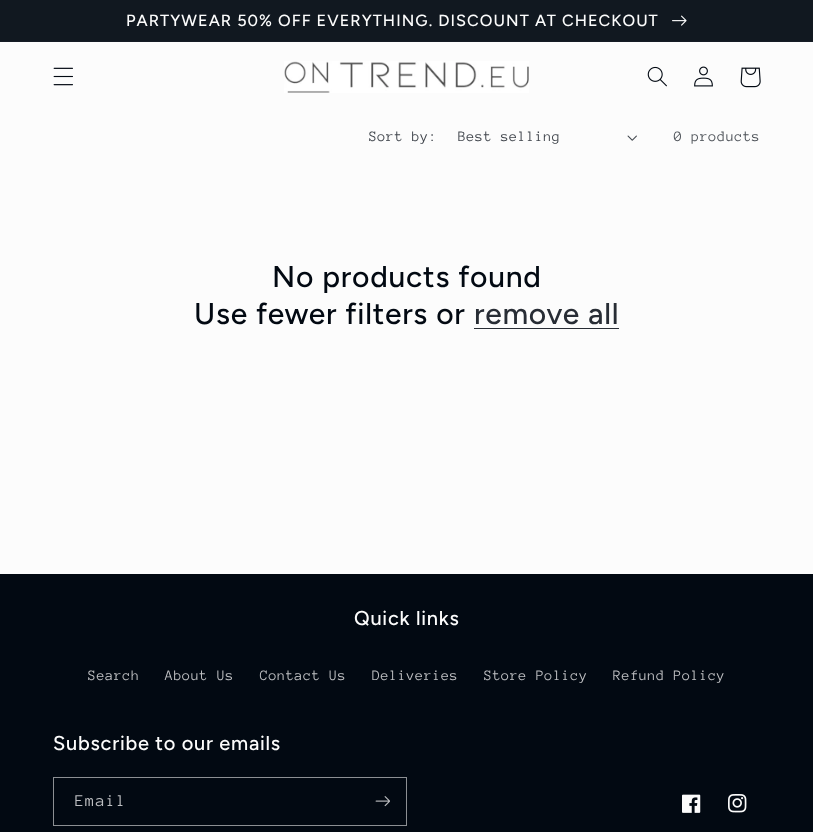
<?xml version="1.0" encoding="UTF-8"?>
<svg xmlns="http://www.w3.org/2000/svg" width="813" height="832">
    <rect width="100%" height="100%" fill="#FCFCFC"/>
    <rect x="0" y="41" width="813" height="1" fill="#161C25"/>
    <rect x="0" y="0" width="813" height="41" fill="#111820"/>
    <text x="126" y="26" font-family="Figtree" font-size="16.25" font-weight="500" letter-spacing="1.05" fill="#FCFCFC">PARTYWEAR 50% OFF EVERYTHING. DISCOUNT AT CHECKOUT</text>
    <image x="672" y="15" width="15" height="11" href="img_01.png"/>
    <image x="53" y="67" width="20" height="19" href="img_02.png"/>
    <image x="284" y="61" width="245" height="32" href="img_03.png"/>
    <image x="647" y="66" width="20" height="21" href="img_04.png"/>
    <image x="694" y="66" width="19" height="21" href="img_05.png"/>
    <image x="740" y="67" width="21" height="21" href="img_06.png"/>
    <text x="369" y="141" font-family="Anonymous Pro" font-size="14.75" letter-spacing="0.5" fill="#41464D">Sort by:</text>
    <text x="458" y="141" font-family="Anonymous Pro" font-size="14.75" letter-spacing="0.5" fill="#41464D">Best selling</text>
    <image x="627" y="135" width="10" height="6" href="img_07.png"/>
    <text x="674" y="141" font-family="Anonymous Pro" font-size="14.75" letter-spacing="0.6" fill="#4D5258">0 products</text>
    <text x="272" y="287" font-family="Figtree" font-size="30" font-weight="500" letter-spacing="0.75" fill="#020912">No products found</text>
    <text x="194" y="324" font-family="Figtree" font-size="30" font-weight="500" letter-spacing="0.75" fill="#020912">Use fewer filters or</text>
    <text x="474" y="324" font-family="Figtree" font-size="30" font-weight="500" letter-spacing="0.75" fill="#282D35">remove all</text>
    <rect x="474" y="328" width="145" height="1" fill="#282D35"/>
    <rect x="0" y="574" width="813" height="258" fill="#020912"/>
    <text x="354" y="625" font-family="Figtree" font-size="20" font-weight="500" letter-spacing="0.75" fill="#FCFCFC">Quick links</text>
    <text x="88" y="680" font-family="Anonymous Pro" font-size="14.75" letter-spacing="0.6" fill="#BEBFC2">Search</text>
    <text x="165" y="680" font-family="Anonymous Pro" font-size="14.75" letter-spacing="0.6" fill="#BEBFC2">About Us</text>
    <text x="260" y="680" font-family="Anonymous Pro" font-size="14.75" letter-spacing="0.6" fill="#BEBFC2">Contact Us</text>
    <text x="372" y="680" font-family="Anonymous Pro" font-size="14.75" letter-spacing="0.6" fill="#BEBFC2">Deliveries</text>
    <text x="484" y="680" font-family="Anonymous Pro" font-size="14.75" letter-spacing="0.6" fill="#BEBFC2">Store Policy</text>
    <text x="613" y="680" font-family="Anonymous Pro" font-size="14.75" letter-spacing="0.6" fill="#BEBFC2">Refund Policy</text>
    <text x="53" y="750" font-family="Figtree" font-size="20" font-weight="500" letter-spacing="0.75" fill="#FCFCFC">Subscribe to our emails</text>
    <rect x="53.5" y="777.5" width="353" height="48" fill="none" stroke="#8C8F93"/>
    <text x="75" y="806" font-family="Anonymous Pro" font-size="17" letter-spacing="1.05" fill="#BEBFC2">Email</text>
    <image x="375" y="796" width="15" height="11" href="img_08.png"/>
    <image x="682" y="794" width="19" height="19" href="img_09.png"/>
    <image x="728" y="794" width="19" height="19" href="img_10.png"/>
</svg>
